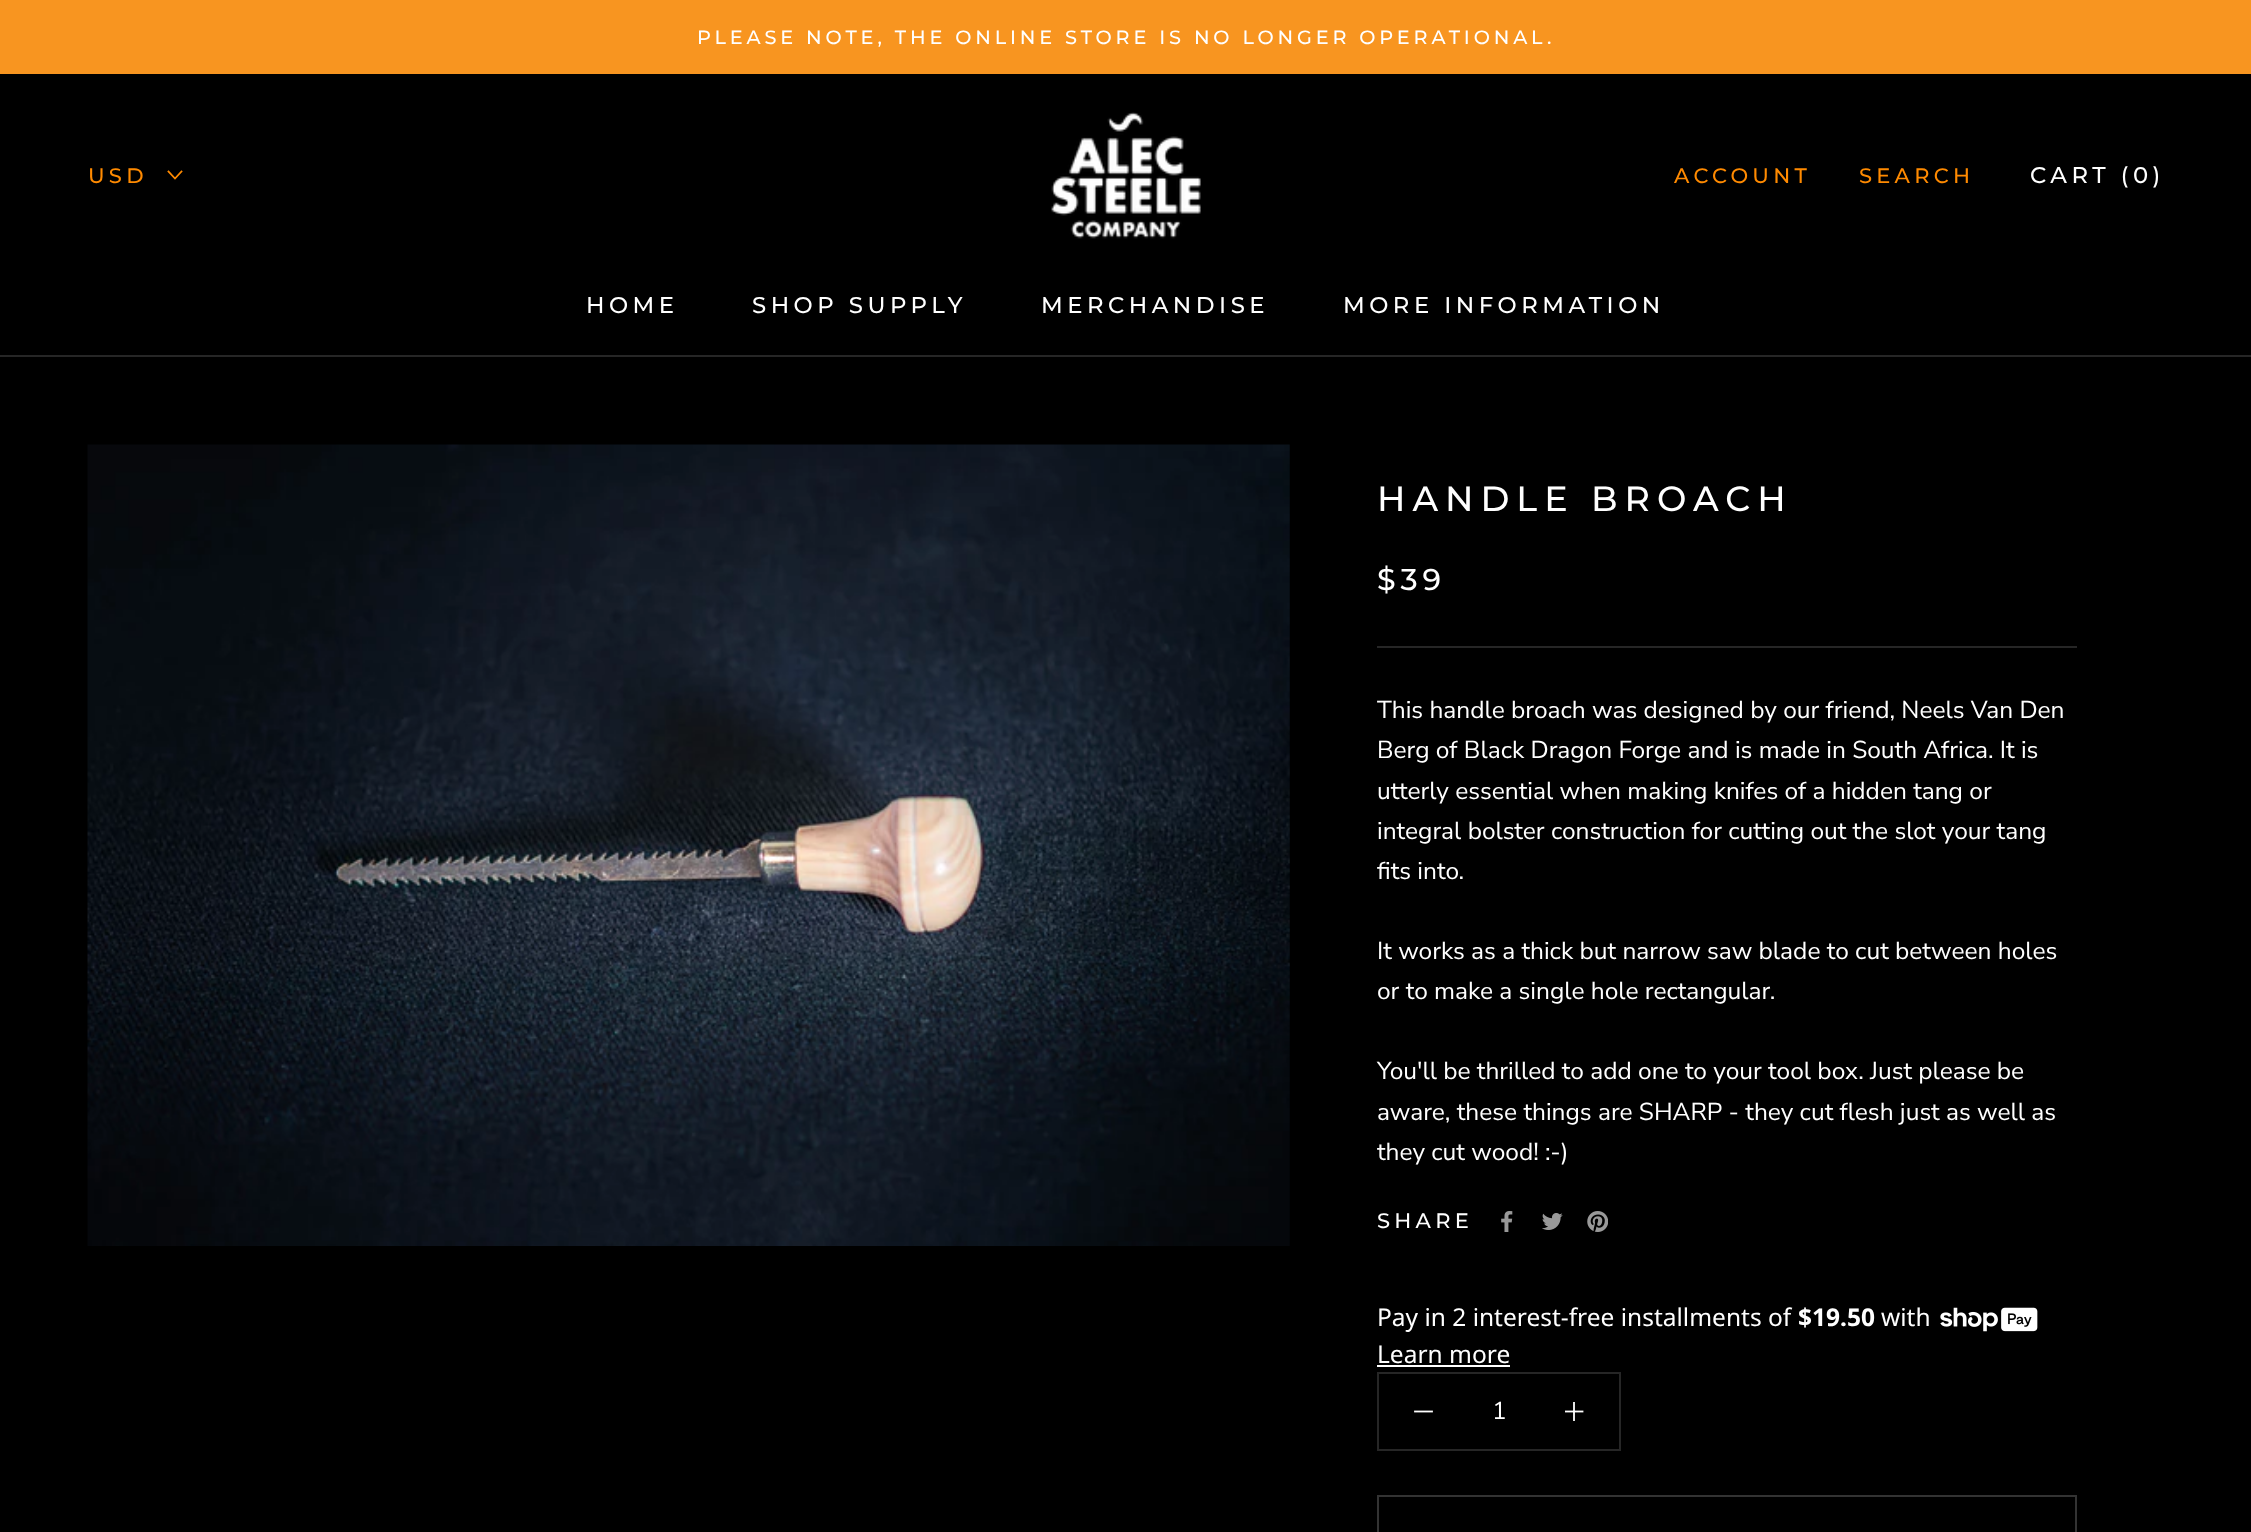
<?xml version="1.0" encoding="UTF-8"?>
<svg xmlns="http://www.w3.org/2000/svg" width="2251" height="1532">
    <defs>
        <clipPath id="clip1"><rect x="1565" y="1402" width="19" height="19"/></clipPath>
    </defs>
    <rect width="100%" height="100%" fill="#000000"/>
    <rect x="0" y="0" width="2251" height="74" fill="#F89520"/>
    <text x="697" y="44" font-family="Montserrat" font-size="19.25" font-weight="500" letter-spacing="3.85" fill="#FFFFFF">PLEASE NOTE, THE ONLINE STORE IS NO LONGER OPERATIONAL.</text>
    <rect x="0" y="355" width="2251" height="2" fill="#262626"/>
    <image x="1051" y="112" width="150" height="127" href="img_01.png"/>
    <text x="1674" y="183" font-family="Montserrat" font-size="21" font-weight="500" letter-spacing="4.25" fill="#FF8A00">ACCOUNT</text>
    <text x="1859" y="183" font-family="Montserrat" font-size="21" font-weight="500" letter-spacing="4.25" fill="#FF8A00">SEARCH</text>
    <text x="2030" y="183" font-family="Montserrat" font-size="22.75" font-weight="500" letter-spacing="4.5" fill="#FFFFFF">CART (0)</text>
    <text x="88" y="183" font-family="Montserrat" font-size="21" font-weight="500" letter-spacing="4.25" fill="#FF8A00">USD</text>
    <path d="M 181.5 171.5 L 175 178.5 L 168.5 171.5" fill="none" stroke="#FF8A00" stroke-width="1.8" stroke-linecap="square"/>
    <text x="586" y="313" font-family="Montserrat" font-size="22.75" font-weight="500" letter-spacing="4.5" fill="#FFFFFF">HOME</text>
    <text x="752" y="313" font-family="Montserrat" font-size="22.75" font-weight="500" letter-spacing="4.5" fill="#FFFFFF">SHOP SUPPLY</text>
    <text x="1041" y="313" font-family="Montserrat" font-size="22.75" font-weight="500" letter-spacing="4.5" fill="#FFFFFF">MERCHANDISE</text>
    <text x="1343" y="313" font-family="Montserrat" font-size="22.75" font-weight="500" letter-spacing="4.5" fill="#FFFFFF">MORE INFORMATION</text>
    <image x="87" y="444" width="1203" height="802" href="img_02.png"/>
    <text x="1377" y="511" font-family="Montserrat" font-size="35" font-weight="500" letter-spacing="7" fill="#FFFFFF">HANDLE BROACH</text>
    <text x="1377" y="590" font-family="Montserrat" font-size="30" font-weight="500" letter-spacing="5" fill="#FFFFFF">$39</text>
    <rect x="1377" y="646" width="700" height="2" fill="#262626"/>
    <text font-family="Nunito Sans" font-size="24.5" fill="#FFFFFF">
        <tspan x="1377" y="718">This handle broach was designed by our friend, Neels Van Den</tspan>
        <tspan x="1377" y="758">Berg of Black Dragon Forge and is made in South Africa. It is</tspan>
        <tspan x="1377" y="799">utterly essential when making knifes of a hidden tang or</tspan>
        <tspan x="1377" y="839">integral bolster construction for cutting out the slot your tang</tspan>
        <tspan x="1377" y="879">fits into.</tspan>
    </text>
    <text font-family="Nunito Sans" font-size="24.5" fill="#FFFFFF">
        <tspan x="1377" y="959">It works as a thick but narrow saw blade to cut between holes</tspan>
        <tspan x="1377" y="999">or to make a single hole rectangular.</tspan>
    </text>
    <text font-family="Nunito Sans" font-size="24.5" fill="#FFFFFF">
        <tspan x="1377" y="1079">You'll be thrilled to add one to your tool box. Just please be</tspan>
        <tspan x="1377" y="1120">aware, these things are SHARP - they cut flesh just as well as</tspan>
        <tspan x="1377" y="1160">they cut wood! :-)</tspan>
    </text>
    <text x="1377" y="1228" font-family="Montserrat" font-size="21" font-weight="500" letter-spacing="4.25" fill="#FFFFFF">SHARE</text>
    <image x="1501" y="1211" width="12" height="21" href="img_03.png"/>
    <image x="1542" y="1213" width="21" height="17" href="img_04.png"/>
    <image x="1587" y="1211" width="21" height="21" href="img_05.png"/>
    <text x="1377" y="1326" font-family="Noto Sans" font-size="24.5" fill="#FFFFFF">Pay in 2 interest-free installments of</text>
    <text x="1798" y="1326" font-family="Noto Sans" font-size="24.5" font-weight="700" fill="#FFFFFF">$19.50</text>
    <text x="1881" y="1326" font-family="Noto Sans" font-size="24.5" fill="#FFFFFF">with</text>
    <image x="1940" y="1307" width="98" height="25" href="img_06.png"/>
    <text x="1377" y="1363" font-family="Noto Sans" font-size="24.5" fill="#FFFFFF">Learn more</text>
    <rect x="1377" y="1365" width="133" height="2" fill="#FFFFFF"/>
    <rect x="1378" y="1373" width="242" height="77" fill="none" stroke="#262626" stroke-width="2"/>
    <path d="M 1415 1411.5 H 1432" fill="none" stroke="#FFFFFF" stroke-width="1.8" stroke-linecap="square"/>
    <text x="1492" y="1419" font-family="Nunito Sans" font-size="24.5" fill="#FFFFFF">1</text>
    <rect x="1573" y="1402" width="2" height="19" fill="#E6E6E6"/>
    <g clip-path="url(#clip1)">
        <path d="M 1565.5 1411.5 H 1582.5" fill="none" stroke="#FFFFFF" stroke-width="1.8" stroke-linecap="square"/>
    </g>
    <rect x="1378" y="1496" width="698" height="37" fill="none" stroke="#333333" stroke-width="2"/>
</svg>
